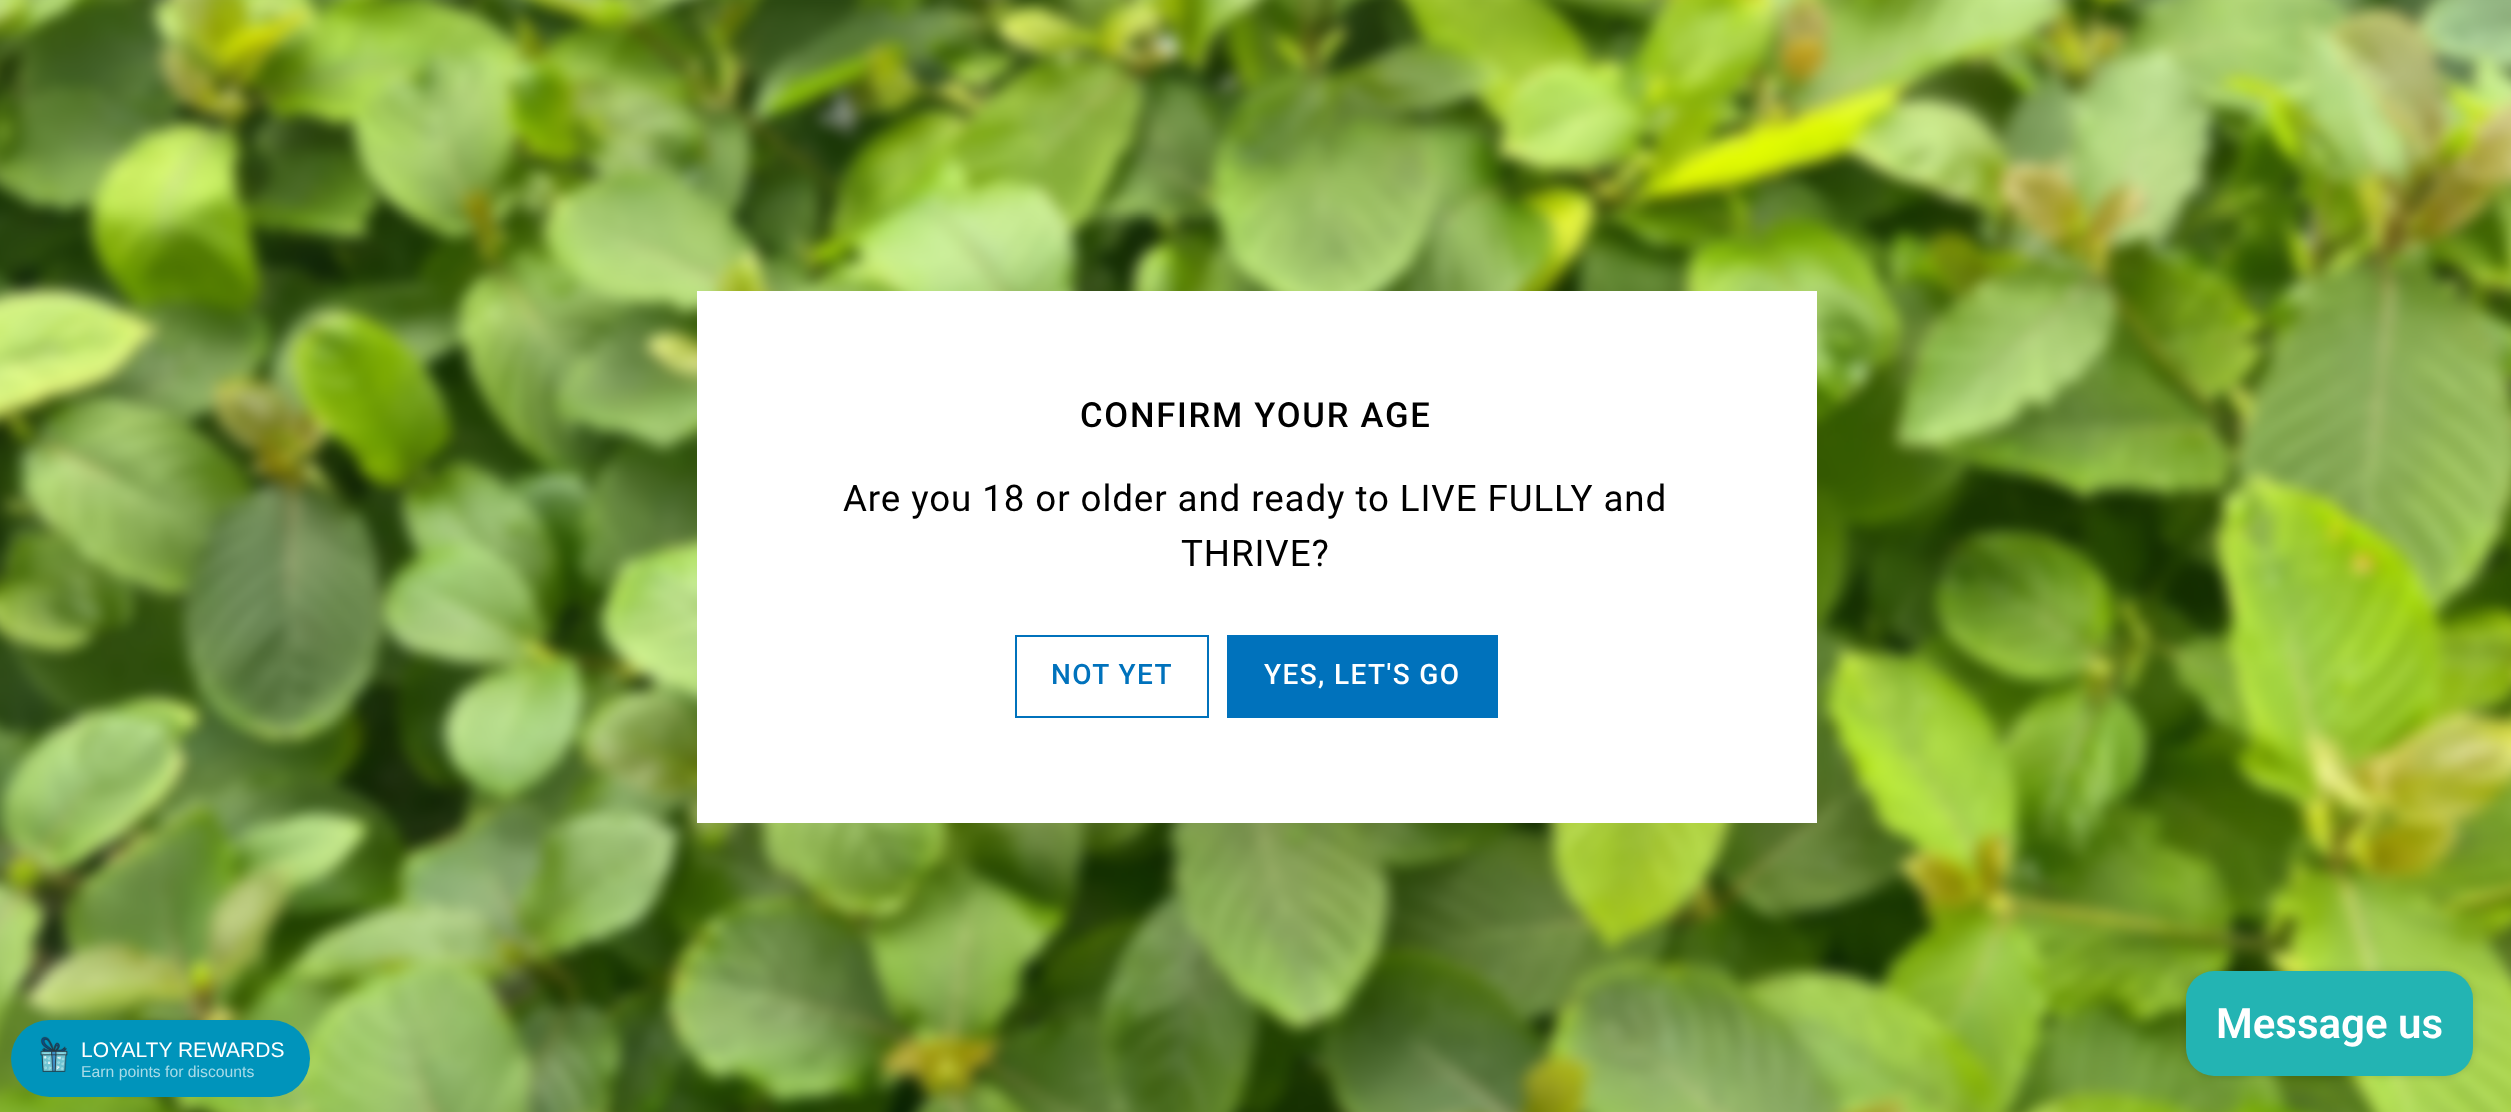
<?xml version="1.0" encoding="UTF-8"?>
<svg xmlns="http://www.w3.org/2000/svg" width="2511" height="1112">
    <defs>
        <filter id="blur1" x="-50%" y="-200%" width="200%" height="500%"><feGaussianBlur stdDeviation="4.5"/></filter>
    </defs>
    <rect width="100%" height="100%" fill="#FFFFFF"/>
    <image x="0" y="0" width="2511" height="1112" href="img_01.png"/>
    <rect x="697" y="291" width="1120" height="532" fill="#FFFFFF"/>
    <text x="1080" y="427" font-family="Roboto" font-size="34.6" font-weight="500" letter-spacing="1.75" fill="#000000">CONFIRM YOUR AGE</text>
    <text x="843" y="511" font-family="Roboto" font-size="36.75" letter-spacing="0.9" fill="#000000">Are you 18 or older and ready to LIVE FULLY and</text>
    <text x="1181" y="566" font-family="Roboto" font-size="36.75" letter-spacing="0.9" fill="#000000">THRIVE?</text>
    <rect x="1016" y="636" width="192" height="81" fill="none" stroke="#0072BC" stroke-width="2"/>
    <text x="1051" y="684" font-family="Roboto" font-size="28" font-weight="500" letter-spacing="1.4" fill="#0072BC">NOT YET</text>
    <rect x="1227" y="635" width="271" height="83" fill="#0072BC"/>
    <text x="1264" y="684" font-family="Roboto" font-size="28" font-weight="500" letter-spacing="1.4" fill="#FFFFFF">YES, LET'S GO</text>
    <rect x="2186" y="971" width="287" height="105" rx="28" fill="#000000" fill-opacity="0.15" filter="url(#blur1)"/>
    <rect x="2186" y="971" width="287" height="105" rx="28" fill="#23B4B3"/>
    <text x="2216" y="1038" font-family="Roboto" font-size="42" font-weight="600" fill="#FFFFFF">Message us</text>
    <rect x="11" y="1020" width="299" height="77" rx="38.5" fill="#0094BB"/>
    <image x="40" y="1036" width="28" height="36" href="img_02.png"/>
    <text x="81" y="1057" font-family="Liberation Sans" font-size="21" fill="#FFFFFF">LOYALTY REWARDS</text>
    <text x="81" y="1077" font-family="Liberation Sans" font-size="15.75" fill="#A8DBE8">Earn points for discounts</text>
</svg>
